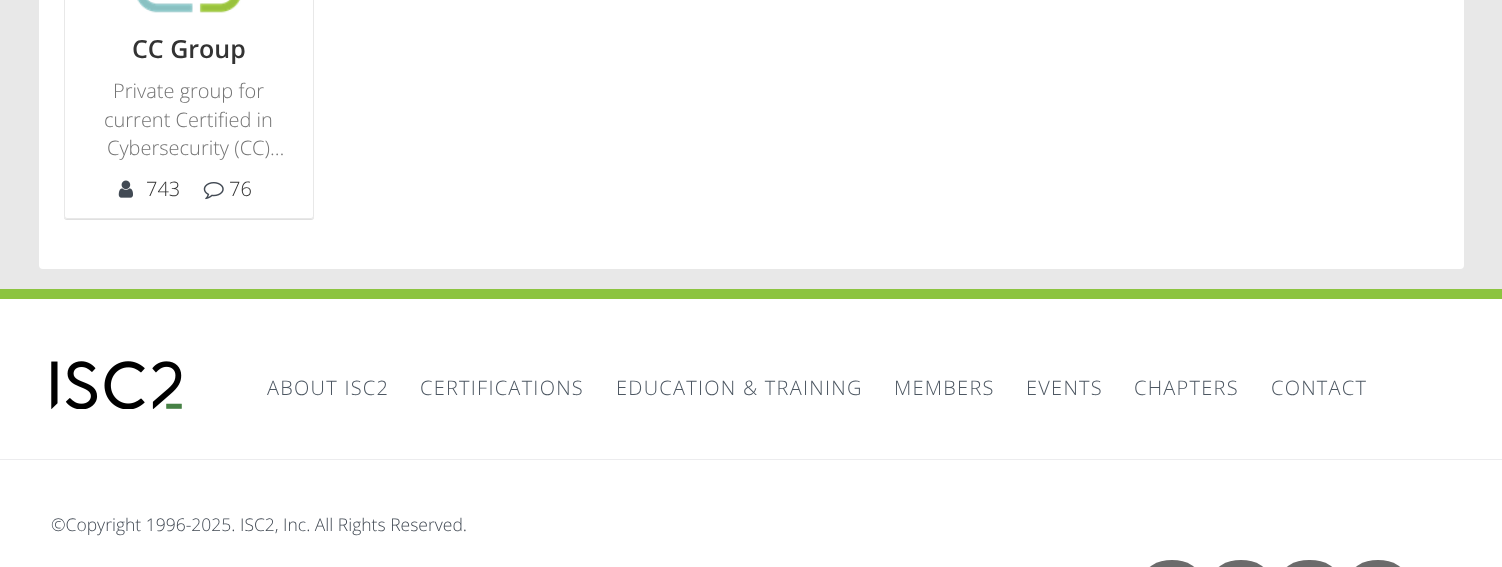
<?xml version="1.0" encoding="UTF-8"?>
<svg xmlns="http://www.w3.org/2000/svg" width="1502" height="567">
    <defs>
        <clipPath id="clip1"><path d="M 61 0 H 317 V 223 H 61 Z M 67 -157 H 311 C 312.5 -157 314 -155.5 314 -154 V 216 C 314 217.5 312.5 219 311 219 H 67 C 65.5 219 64 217.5 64 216 V -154 C 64 -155.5 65.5 -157 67 -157 Z" clip-rule="evenodd"/></clipPath>
        <filter id="blur1" x="-50%" y="-200%" width="200%" height="500%"><feGaussianBlur stdDeviation="0.5"/></filter>
    </defs>
    <rect width="100%" height="100%" fill="#FFFFFF"/>
    <rect x="0" y="0" width="1502" height="289" fill="#E8E8E8"/>
    <rect x="39" y="-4" width="1425" height="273" rx="4" fill="#FFFFFF"/>
    <g clip-path="url(#clip1)">
        <rect x="64" y="-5" width="250" height="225" rx="3" fill="#000000" fill-opacity="0.12" filter="url(#blur1)"/>
    </g>
    <rect x="64.5" y="-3.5" width="249" height="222" rx="2.5" fill="none" stroke="#E8E8E8"/>
    <image x="137" y="0" width="104" height="13" href="img_01.png"/>
    <text x="132" y="58" font-family="Open Sans" font-size="25" font-weight="600" fill="#333333">CC Group</text>
    <text x="113" y="98" font-family="Open Sans" font-size="20" font-weight="300" fill="#747474">Private group for</text>
    <text x="104" y="127" font-family="Open Sans" font-size="20" font-weight="300" fill="#747474">current Certified in</text>
    <text x="107" y="155" font-family="Open Sans" font-size="20" font-weight="300" fill="#747474">Cybersecurity (CC)…</text>
    <image x="118" y="180" width="15" height="18" href="img_02.png"/>
    <text x="146" y="196" font-family="Open Sans" font-size="20" font-weight="300" fill="#333333">743</text>
    <image x="203" y="182" width="21" height="18" href="img_03.png"/>
    <text x="229" y="196" font-family="Open Sans" font-size="20" font-weight="300" fill="#333333">76</text>
    <rect x="0" y="289" width="1502" height="10" fill="#8CC440"/>
    <image x="51" y="361" width="131" height="48" href="img_04.png"/>
    <text x="267" y="395" font-family="Open Sans" font-size="20" font-weight="300" letter-spacing="1.25" fill="#4D5762">ABOUT ISC2</text>
    <text x="420" y="395" font-family="Open Sans" font-size="20" font-weight="300" letter-spacing="1.25" fill="#4D5762">CERTIFICATIONS</text>
    <text x="616" y="395" font-family="Open Sans" font-size="20" font-weight="300" letter-spacing="1.25" fill="#4D5762">EDUCATION &amp; TRAINING</text>
    <text x="894" y="395" font-family="Open Sans" font-size="20" font-weight="300" letter-spacing="1.25" fill="#4D5762">MEMBERS</text>
    <text x="1026" y="395" font-family="Open Sans" font-size="20" font-weight="300" letter-spacing="1.25" fill="#4D5762">EVENTS</text>
    <text x="1134" y="395" font-family="Open Sans" font-size="20" font-weight="300" letter-spacing="1.25" fill="#4D5762">CHAPTERS</text>
    <text x="1271" y="395" font-family="Open Sans" font-size="20" font-weight="300" letter-spacing="1.25" fill="#4D5762">CONTACT</text>
    <rect x="0" y="459" width="1502" height="1" fill="#ECECEE"/>
    <text x="51" y="531" font-family="Open Sans" font-size="17.5" font-weight="300" fill="#424A54">©Copyright 1996-2025. ISC2, Inc. All Rights Reserved.</text>
    <rect x="1144" y="560" width="56" height="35" rx="28" fill="#6B6B6B"/>
    <rect x="1213" y="560" width="56" height="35" rx="28" fill="#6B6B6B"/>
    <rect x="1281" y="560" width="57" height="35" rx="28" fill="#6B6B6B"/>
    <rect x="1350" y="560" width="56" height="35" rx="28" fill="#6B6B6B"/>
</svg>
